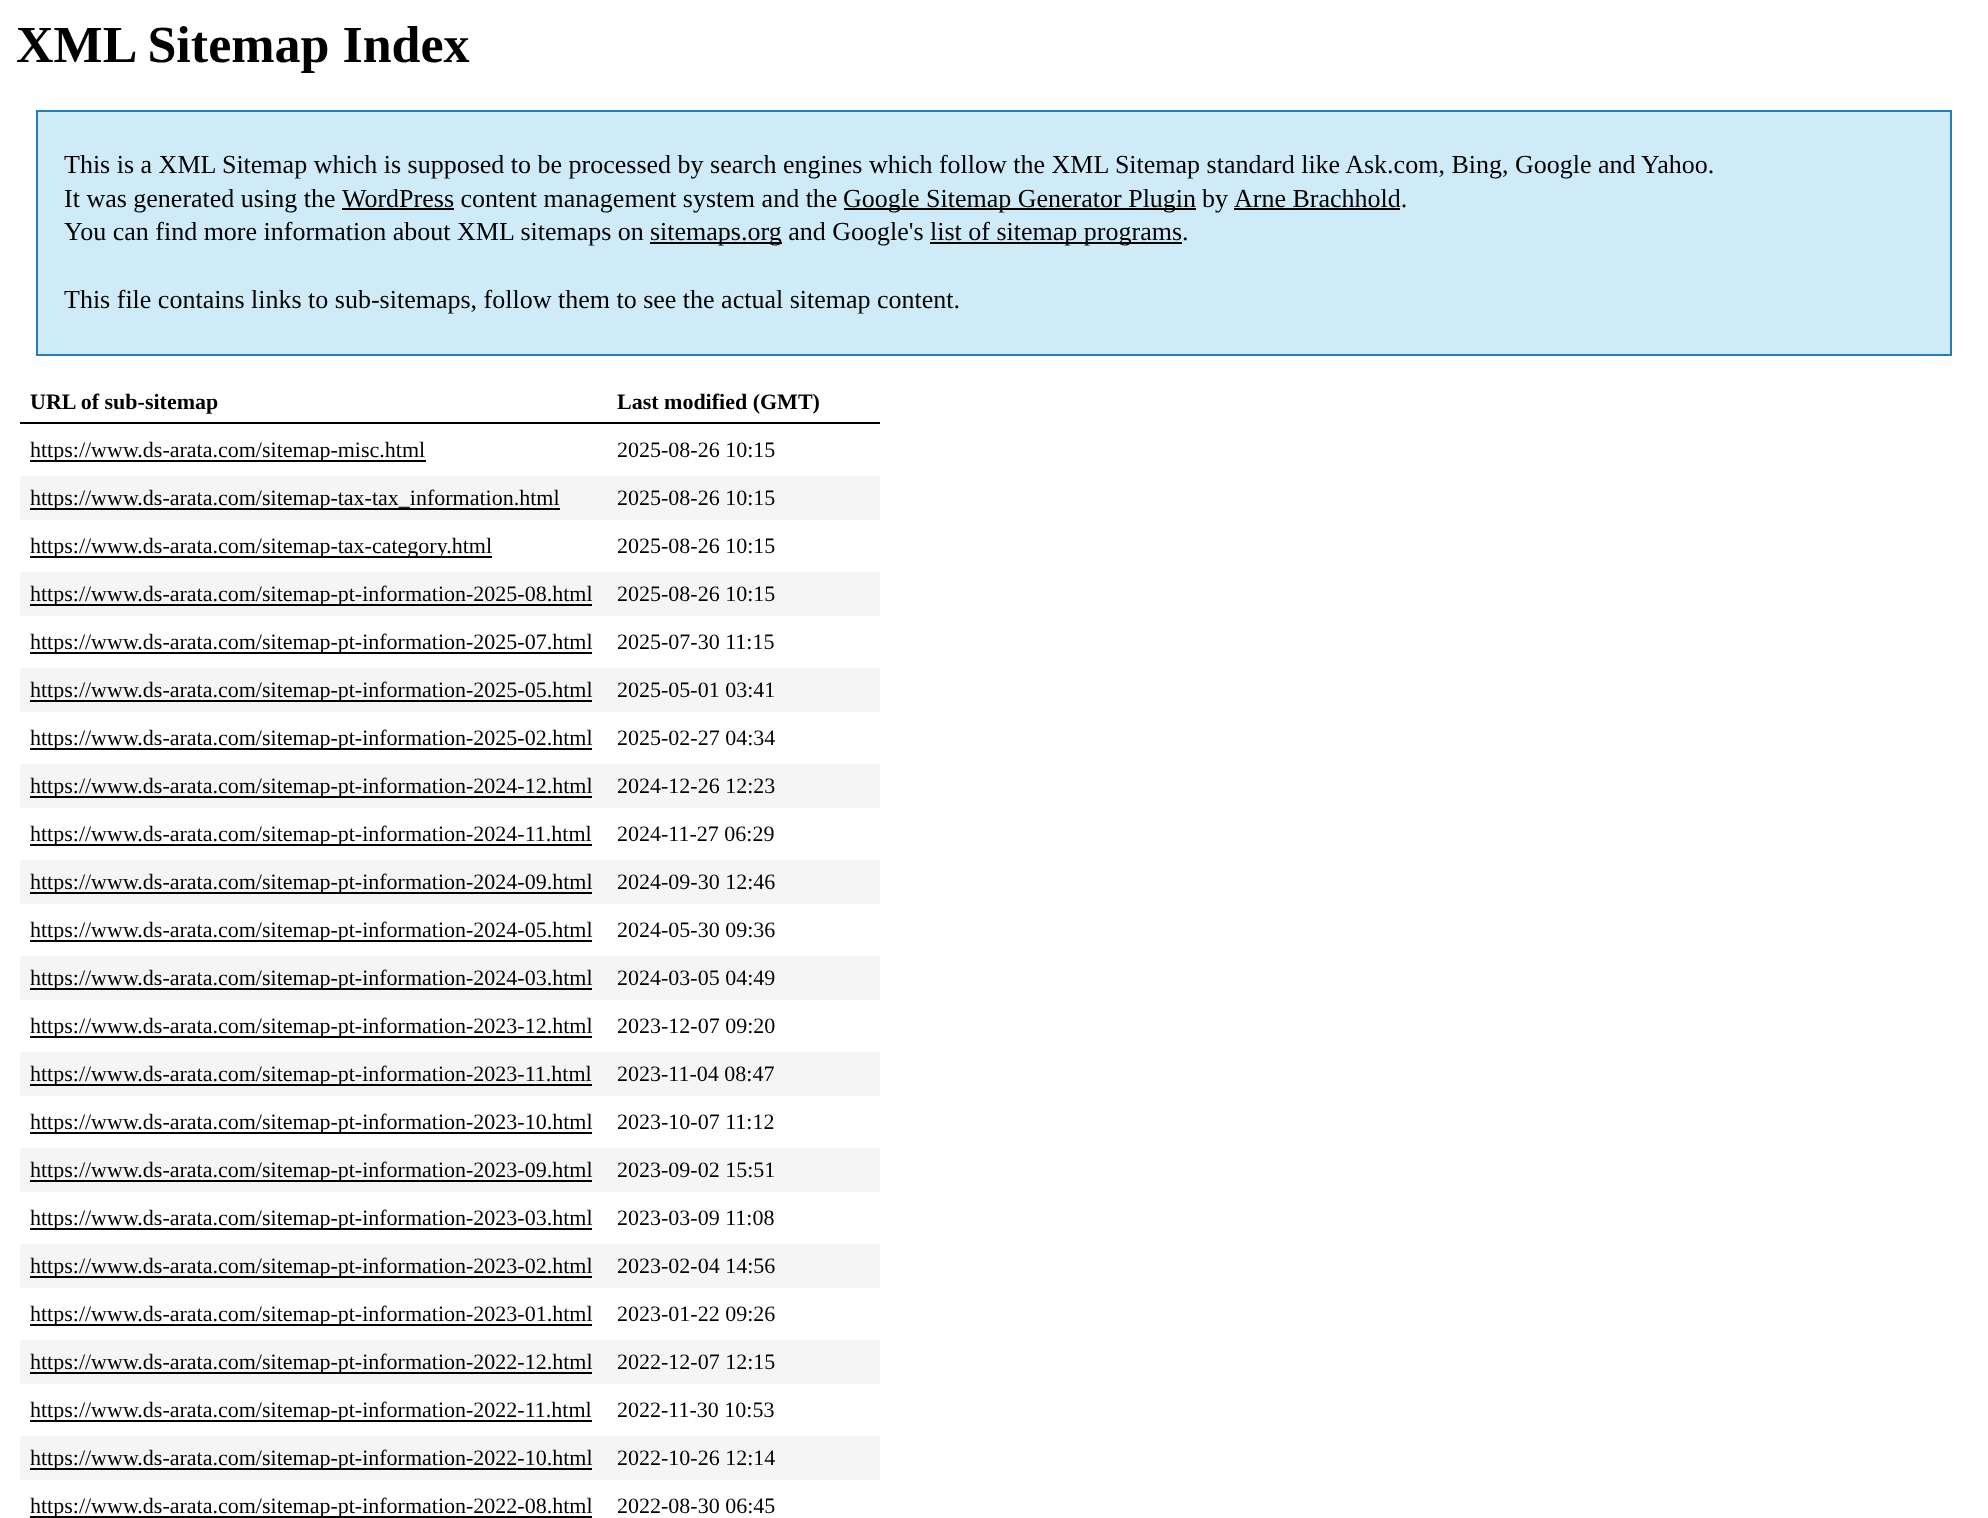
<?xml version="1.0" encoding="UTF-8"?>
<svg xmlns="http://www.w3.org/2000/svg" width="1988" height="1518">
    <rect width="100%" height="100%" fill="#FFFFFF"/>
    <text x="16" y="62" font-family="Liberation Serif" font-size="52" font-weight="700" fill="#000000">XML Sitemap Index</text>
    <rect x="37" y="111" width="1914" height="244" fill="#CFEBF7" stroke="#2580B2" stroke-width="2"/>
    <text font-family="Liberation Serif" font-size="26" fill="#000000">
        <tspan x="64" y="173">This is a XML Sitemap which is supposed to be processed by search engines which follow the XML Sitemap standard like Ask.com, Bing, Google and Yahoo.</tspan>
        <tspan x="64" y="207">It was generated using the</tspan>
    </text>
    <rect x="342" y="208" width="112" height="2" fill="#000000"/>
    <text x="342" y="207" font-family="Liberation Serif" font-size="26" fill="#000000">WordPress content management system and the</text>
    <rect x="844" y="208" width="352" height="2" fill="#000000"/>
    <text x="843" y="207" font-family="Liberation Serif" font-size="26" fill="#000000">Google Sitemap Generator Plugin</text>
    <text x="1202" y="207" font-family="Liberation Serif" font-size="26" fill="#000000">by</text>
    <text x="1234" y="207" font-family="Liberation Serif" font-size="26" fill="#000000">Arne Brachhold.</text>
    <rect x="1234" y="208" width="166" height="2" fill="#000000"/>
    <text x="64" y="240" font-family="Liberation Serif" font-size="26" fill="#000000">You can find more information about XML sitemaps on</text>
    <rect x="650" y="242" width="132" height="2" fill="#000000"/>
    <text x="650" y="240" font-family="Liberation Serif" font-size="26" fill="#000000">sitemaps.org and Google's</text>
    <rect x="930" y="242" width="252" height="2" fill="#000000"/>
    <text x="930" y="240" font-family="Liberation Serif" font-size="26" fill="#000000">list of sitemap programs.</text>
    <text x="64" y="308" font-family="Liberation Serif" font-size="26" fill="#000000">This file contains links to sub-sitemaps, follow them to see the actual sitemap content.</text>
    <rect x="20" y="422" width="860" height="2" fill="#000000"/>
    <text x="30" y="409" font-family="Liberation Serif" font-size="22" font-weight="700" fill="#000000">URL of sub-sitemap</text>
    <text x="617" y="409" font-family="Liberation Serif" font-size="22" font-weight="700" fill="#000000">Last modified (GMT)</text>
    <rect x="30" y="460" width="396" height="2" fill="#000000"/>
    <text x="30" y="457" font-family="Liberation Serif" font-size="22" fill="#000000">https://www.ds-arata.com/sitemap-misc.html</text>
    <text x="617" y="457" font-family="Liberation Serif" font-size="22" fill="#000000">2025-08-26 10:15</text>
    <rect x="20" y="476" width="860" height="44" fill="#F5F5F5"/>
    <rect x="30" y="508" width="530" height="2" fill="#000000"/>
    <text x="30" y="505" font-family="Liberation Serif" font-size="22" fill="#000000">https://www.ds-arata.com/sitemap-tax-tax_information.html</text>
    <text x="617" y="505" font-family="Liberation Serif" font-size="22" fill="#000000">2025-08-26 10:15</text>
    <rect x="30" y="556" width="462" height="2" fill="#000000"/>
    <text x="30" y="553" font-family="Liberation Serif" font-size="22" fill="#000000">https://www.ds-arata.com/sitemap-tax-category.html</text>
    <text x="617" y="553" font-family="Liberation Serif" font-size="22" fill="#000000">2025-08-26 10:15</text>
    <rect x="20" y="572" width="860" height="44" fill="#F5F5F5"/>
    <rect x="30" y="604" width="562" height="2" fill="#000000"/>
    <text x="30" y="601" font-family="Liberation Serif" font-size="22" fill="#000000">https://www.ds-arata.com/sitemap-pt-information-2025-08.html</text>
    <text x="617" y="601" font-family="Liberation Serif" font-size="22" fill="#000000">2025-08-26 10:15</text>
    <rect x="30" y="652" width="562" height="2" fill="#000000"/>
    <text x="30" y="649" font-family="Liberation Serif" font-size="22" fill="#000000">https://www.ds-arata.com/sitemap-pt-information-2025-07.html</text>
    <text x="617" y="649" font-family="Liberation Serif" font-size="22" fill="#000000">2025-07-30 11:15</text>
    <rect x="20" y="668" width="860" height="44" fill="#F5F5F5"/>
    <rect x="30" y="700" width="562" height="2" fill="#000000"/>
    <text x="30" y="697" font-family="Liberation Serif" font-size="22" fill="#000000">https://www.ds-arata.com/sitemap-pt-information-2025-05.html</text>
    <text x="617" y="697" font-family="Liberation Serif" font-size="22" fill="#000000">2025-05-01 03:41</text>
    <rect x="30" y="748" width="562" height="2" fill="#000000"/>
    <text x="30" y="745" font-family="Liberation Serif" font-size="22" fill="#000000">https://www.ds-arata.com/sitemap-pt-information-2025-02.html</text>
    <text x="617" y="745" font-family="Liberation Serif" font-size="22" fill="#000000">2025-02-27 04:34</text>
    <rect x="20" y="764" width="860" height="44" fill="#F5F5F5"/>
    <rect x="30" y="796" width="562" height="2" fill="#000000"/>
    <text x="30" y="793" font-family="Liberation Serif" font-size="22" fill="#000000">https://www.ds-arata.com/sitemap-pt-information-2024-12.html</text>
    <text x="617" y="793" font-family="Liberation Serif" font-size="22" fill="#000000">2024-12-26 12:23</text>
    <rect x="30" y="844" width="562" height="2" fill="#000000"/>
    <text x="30" y="841" font-family="Liberation Serif" font-size="22" fill="#000000">https://www.ds-arata.com/sitemap-pt-information-2024-11.html</text>
    <text x="617" y="841" font-family="Liberation Serif" font-size="22" fill="#000000">2024-11-27 06:29</text>
    <rect x="20" y="860" width="860" height="44" fill="#F5F5F5"/>
    <rect x="30" y="892" width="562" height="2" fill="#000000"/>
    <text x="30" y="889" font-family="Liberation Serif" font-size="22" fill="#000000">https://www.ds-arata.com/sitemap-pt-information-2024-09.html</text>
    <text x="617" y="889" font-family="Liberation Serif" font-size="22" fill="#000000">2024-09-30 12:46</text>
    <rect x="30" y="940" width="562" height="2" fill="#000000"/>
    <text x="30" y="937" font-family="Liberation Serif" font-size="22" fill="#000000">https://www.ds-arata.com/sitemap-pt-information-2024-05.html</text>
    <text x="617" y="937" font-family="Liberation Serif" font-size="22" fill="#000000">2024-05-30 09:36</text>
    <rect x="20" y="956" width="860" height="44" fill="#F5F5F5"/>
    <rect x="30" y="988" width="562" height="2" fill="#000000"/>
    <text x="30" y="985" font-family="Liberation Serif" font-size="22" fill="#000000">https://www.ds-arata.com/sitemap-pt-information-2024-03.html</text>
    <text x="617" y="985" font-family="Liberation Serif" font-size="22" fill="#000000">2024-03-05 04:49</text>
    <rect x="30" y="1036" width="562" height="2" fill="#000000"/>
    <text x="30" y="1033" font-family="Liberation Serif" font-size="22" fill="#000000">https://www.ds-arata.com/sitemap-pt-information-2023-12.html</text>
    <text x="617" y="1033" font-family="Liberation Serif" font-size="22" fill="#000000">2023-12-07 09:20</text>
    <rect x="20" y="1052" width="860" height="44" fill="#F5F5F5"/>
    <rect x="30" y="1084" width="562" height="2" fill="#000000"/>
    <text x="30" y="1081" font-family="Liberation Serif" font-size="22" fill="#000000">https://www.ds-arata.com/sitemap-pt-information-2023-11.html</text>
    <text x="617" y="1081" font-family="Liberation Serif" font-size="22" fill="#000000">2023-11-04 08:47</text>
    <rect x="30" y="1132" width="562" height="2" fill="#000000"/>
    <text x="30" y="1129" font-family="Liberation Serif" font-size="22" fill="#000000">https://www.ds-arata.com/sitemap-pt-information-2023-10.html</text>
    <text x="617" y="1129" font-family="Liberation Serif" font-size="22" fill="#000000">2023-10-07 11:12</text>
    <rect x="20" y="1148" width="860" height="44" fill="#F5F5F5"/>
    <rect x="30" y="1180" width="562" height="2" fill="#000000"/>
    <text x="30" y="1177" font-family="Liberation Serif" font-size="22" fill="#000000">https://www.ds-arata.com/sitemap-pt-information-2023-09.html</text>
    <text x="617" y="1177" font-family="Liberation Serif" font-size="22" fill="#000000">2023-09-02 15:51</text>
    <rect x="30" y="1228" width="562" height="2" fill="#000000"/>
    <text x="30" y="1225" font-family="Liberation Serif" font-size="22" fill="#000000">https://www.ds-arata.com/sitemap-pt-information-2023-03.html</text>
    <text x="617" y="1225" font-family="Liberation Serif" font-size="22" fill="#000000">2023-03-09 11:08</text>
    <rect x="20" y="1244" width="860" height="44" fill="#F5F5F5"/>
    <rect x="30" y="1276" width="562" height="2" fill="#000000"/>
    <text x="30" y="1273" font-family="Liberation Serif" font-size="22" fill="#000000">https://www.ds-arata.com/sitemap-pt-information-2023-02.html</text>
    <text x="617" y="1273" font-family="Liberation Serif" font-size="22" fill="#000000">2023-02-04 14:56</text>
    <rect x="30" y="1324" width="562" height="2" fill="#000000"/>
    <text x="30" y="1321" font-family="Liberation Serif" font-size="22" fill="#000000">https://www.ds-arata.com/sitemap-pt-information-2023-01.html</text>
    <text x="617" y="1321" font-family="Liberation Serif" font-size="22" fill="#000000">2023-01-22 09:26</text>
    <rect x="20" y="1340" width="860" height="44" fill="#F5F5F5"/>
    <rect x="30" y="1372" width="562" height="2" fill="#000000"/>
    <text x="30" y="1369" font-family="Liberation Serif" font-size="22" fill="#000000">https://www.ds-arata.com/sitemap-pt-information-2022-12.html</text>
    <text x="617" y="1369" font-family="Liberation Serif" font-size="22" fill="#000000">2022-12-07 12:15</text>
    <rect x="30" y="1420" width="562" height="2" fill="#000000"/>
    <text x="30" y="1417" font-family="Liberation Serif" font-size="22" fill="#000000">https://www.ds-arata.com/sitemap-pt-information-2022-11.html</text>
    <text x="617" y="1417" font-family="Liberation Serif" font-size="22" fill="#000000">2022-11-30 10:53</text>
    <rect x="20" y="1436" width="860" height="44" fill="#F5F5F5"/>
    <rect x="30" y="1468" width="562" height="2" fill="#000000"/>
    <text x="30" y="1465" font-family="Liberation Serif" font-size="22" fill="#000000">https://www.ds-arata.com/sitemap-pt-information-2022-10.html</text>
    <text x="617" y="1465" font-family="Liberation Serif" font-size="22" fill="#000000">2022-10-26 12:14</text>
    <rect x="30" y="1516" width="562" height="2" fill="#000000"/>
    <text x="30" y="1513" font-family="Liberation Serif" font-size="22" fill="#000000">https://www.ds-arata.com/sitemap-pt-information-2022-08.html</text>
    <text x="617" y="1513" font-family="Liberation Serif" font-size="22" fill="#000000">2022-08-30 06:45</text>
</svg>
